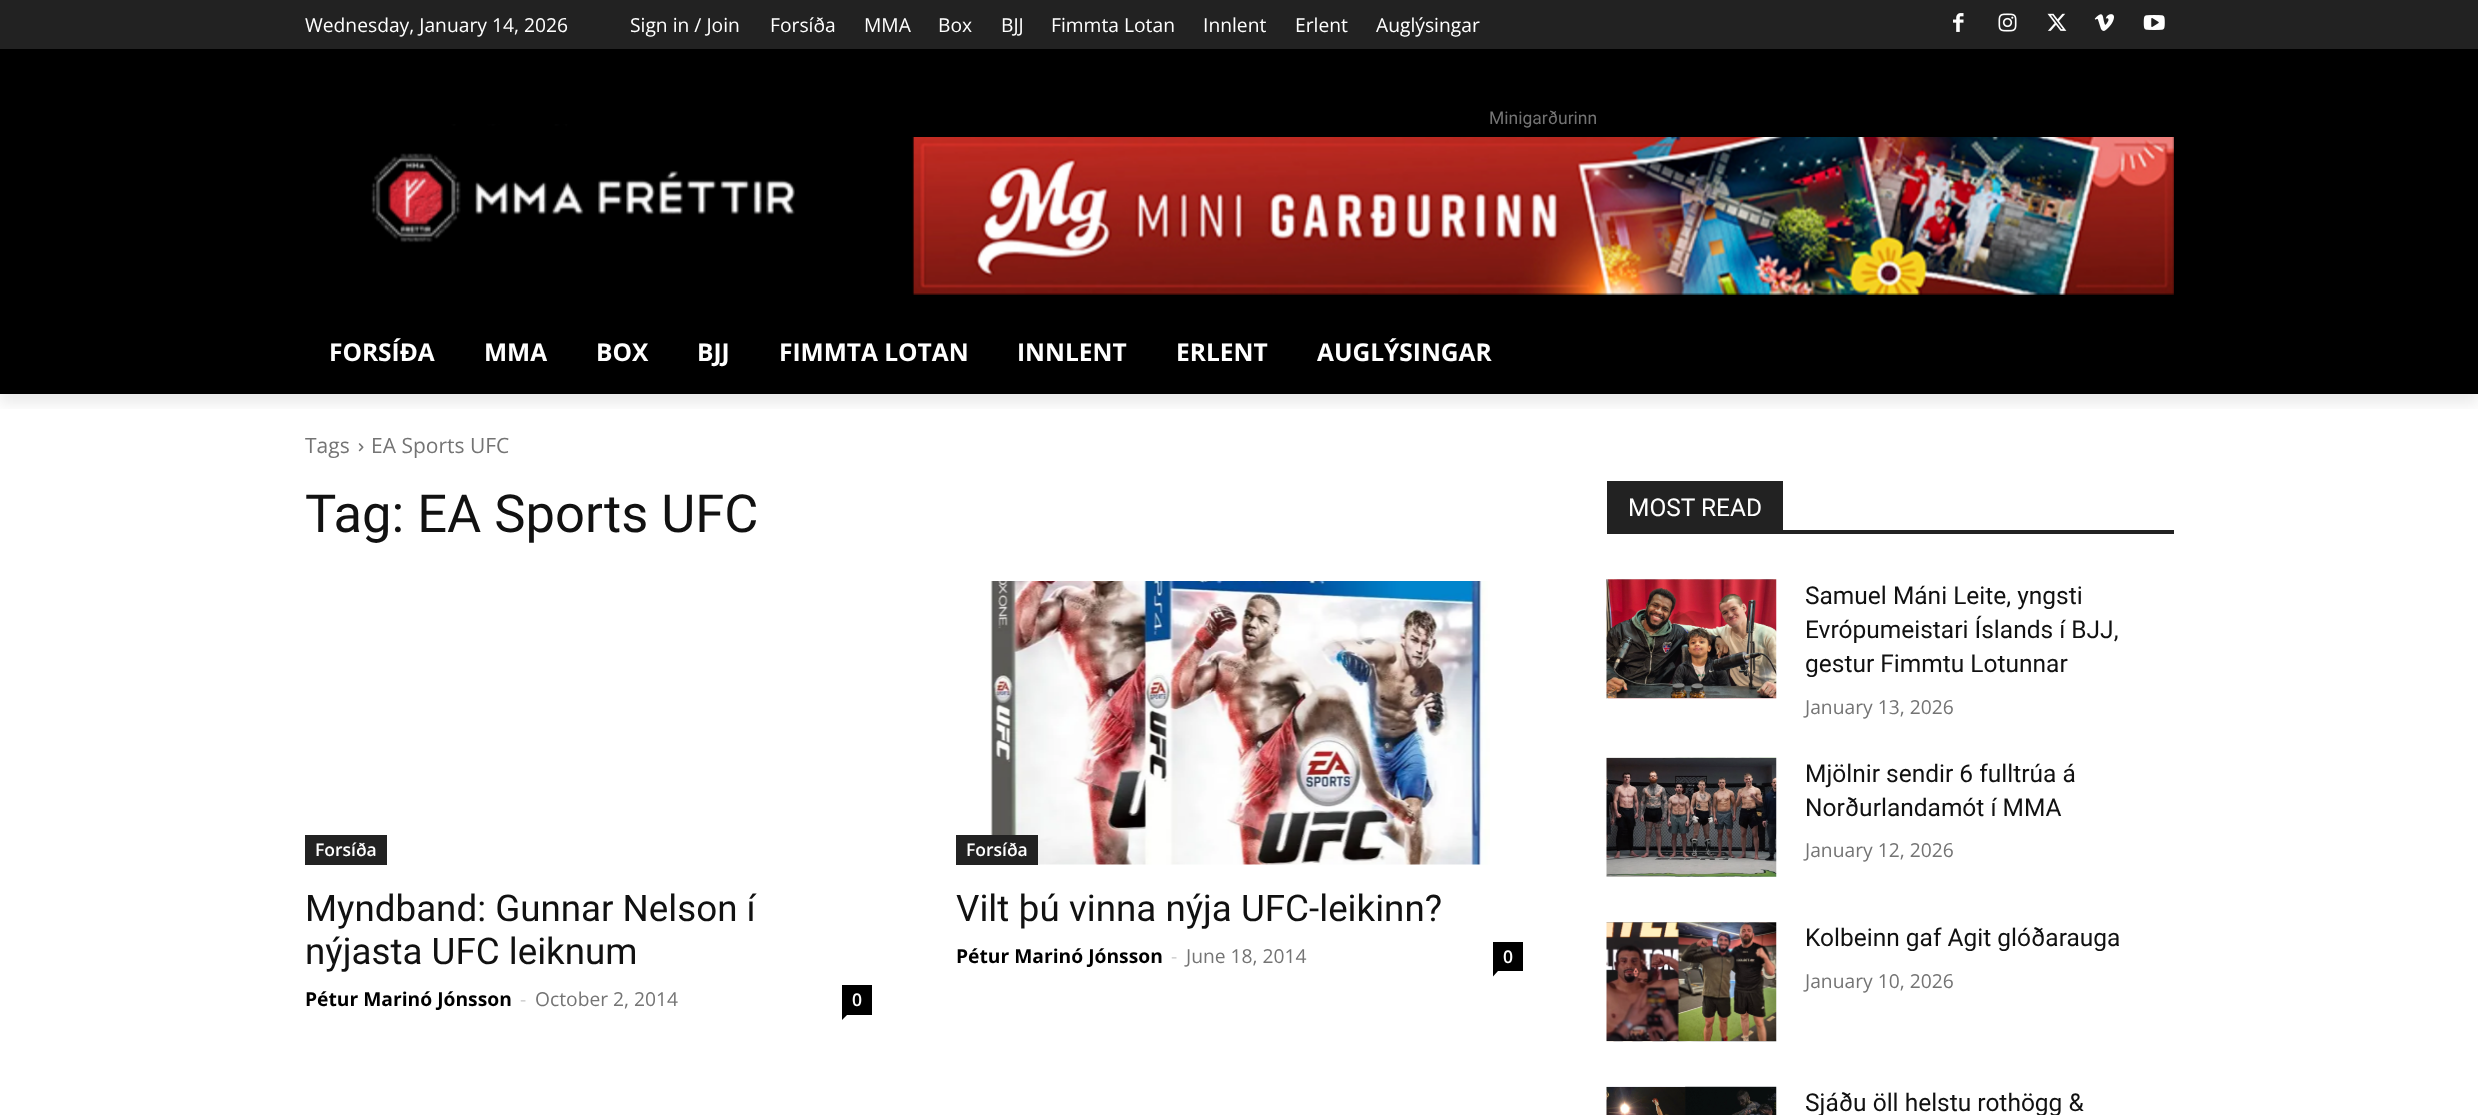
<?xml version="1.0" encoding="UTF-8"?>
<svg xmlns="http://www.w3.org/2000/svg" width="2478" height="1115">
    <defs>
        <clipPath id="clip1"><rect x="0" y="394" width="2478" height="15"/></clipPath>
        <filter id="blur1" x="-50%" y="-200%" width="200%" height="500%"><feGaussianBlur stdDeviation="7"/></filter>
    </defs>
    <rect width="100%" height="100%" fill="#FFFFFF"/>
    <rect x="0" y="0" width="2478" height="49" fill="#222222"/>
    <image x="1953" y="13" width="11" height="19" href="img_01.png"/>
    <image x="1998" y="13" width="19" height="19" href="img_02.png"/>
    <image x="2047" y="13" width="20" height="18" href="img_03.png"/>
    <image x="2094" y="14" width="20" height="17" href="img_04.png"/>
    <image x="2143" y="15" width="22" height="15" href="img_05.png"/>
    <rect x="0" y="49" width="2478" height="345" fill="#000000"/>
    <image x="912" y="137" width="1262" height="158" href="img_06.png"/>
    <image x="371" y="124" width="424" height="119" href="img_07.png"/>
    <g clip-path="url(#clip1)">
        <rect x="0" y="11" width="2478" height="393" fill="#000000" fill-opacity="0.08" filter="url(#blur1)"/>
    </g>
    <text x="305" y="32" font-family="Open Sans" font-size="19.25" fill="#FFFFFF">Wednesday, January 14, 2026</text>
    <text x="630" y="32" font-family="Open Sans" font-size="19.25" fill="#FFFFFF">Sign in / Join</text>
    <text x="770" y="32" font-family="Open Sans" font-size="19.25" fill="#FFFFFF">Forsíða</text>
    <text x="864" y="32" font-family="Open Sans" font-size="19.25" fill="#FFFFFF">MMA</text>
    <text x="938" y="32" font-family="Open Sans" font-size="19.25" fill="#FFFFFF">Box</text>
    <text x="1001" y="32" font-family="Open Sans" font-size="19.25" fill="#FFFFFF">BJJ</text>
    <text x="1051" y="32" font-family="Open Sans" font-size="19.25" fill="#FFFFFF">Fimmta Lotan</text>
    <text x="1203" y="32" font-family="Open Sans" font-size="19.25" fill="#FFFFFF">Innlent</text>
    <text x="1295" y="32" font-family="Open Sans" font-size="19.25" fill="#FFFFFF">Erlent</text>
    <text x="1376" y="32" font-family="Open Sans" font-size="19.25" fill="#FFFFFF">Auglýsingar</text>
    <text x="1489" y="124" font-family="Roboto" font-size="17.5" fill="#747474">Minigarðurinn</text>
    <text x="329" y="361" font-family="Open Sans" font-size="24.5" font-weight="700" fill="#FFFFFF">FORSÍÐA</text>
    <text x="484" y="361" font-family="Open Sans" font-size="24.5" font-weight="700" fill="#FFFFFF">MMA</text>
    <text x="596" y="361" font-family="Open Sans" font-size="24.5" font-weight="700" fill="#FFFFFF">BOX</text>
    <text x="697" y="361" font-family="Open Sans" font-size="24.5" font-weight="700" fill="#FFFFFF">BJJ</text>
    <text x="779" y="361" font-family="Open Sans" font-size="24.5" font-weight="700" fill="#FFFFFF">FIMMTA LOTAN</text>
    <text x="1017" y="361" font-family="Open Sans" font-size="24.5" font-weight="700" fill="#FFFFFF">INNLENT</text>
    <text x="1176" y="361" font-family="Open Sans" font-size="24.5" font-weight="700" fill="#FFFFFF">ERLENT</text>
    <text x="1317" y="361" font-family="Open Sans" font-size="24.5" font-weight="700" fill="#FFFFFF">AUGLÝSINGAR</text>
    <text x="305" y="453" font-family="Open Sans" font-size="21" fill="#747474">Tags</text>
    <image x="358" y="443" width="6" height="9" href="img_08.png"/>
    <text x="371" y="453" font-family="Open Sans" font-size="21" fill="#747474">EA Sports UFC</text>
    <text x="305" y="532" font-family="Roboto" font-size="52.5" fill="#111111">Tag: EA Sports UFC</text>
    <rect x="305" y="835" width="82" height="30" fill="#222222"/>
    <text x="315" y="856" font-family="Open Sans" font-size="17.5" font-weight="600" fill="#FFFFFF">Forsíða</text>
    <text font-family="Roboto" font-size="36.75" fill="#111111">
        <tspan x="305" y="921">Myndband: Gunnar Nelson í</tspan>
        <tspan x="305" y="964">nýjasta UFC leiknum</tspan>
    </text>
    <text x="305" y="1006" font-family="Open Sans" font-size="19.25" font-weight="700" fill="#000000">Pétur Marinó Jónsson</text>
    <text x="520" y="1006" font-family="Open Sans" font-size="19.25" fill="#CCCCCC">-</text>
    <text x="535" y="1006" font-family="Open Sans" font-size="19.25" fill="#747474">October 2, 2014</text>
    <rect x="842" y="985" width="30" height="30" fill="#000000"/>
    <text x="852" y="1006" font-family="Open Sans" font-size="17.5" font-weight="600" fill="#FFFFFF">0</text>
    <path d="M 842 1015 H 847 L 842 1020 Z" fill="#000000"/>
    <image x="990" y="581" width="500" height="284" href="img_09.png"/>
    <rect x="956" y="835" width="82" height="30" fill="#222222"/>
    <text x="966" y="856" font-family="Open Sans" font-size="17.5" font-weight="600" fill="#FFFFFF">Forsíða</text>
    <text x="956" y="921" font-family="Roboto" font-size="36.75" fill="#111111">Vilt þú vinna nýja UFC-leikinn?</text>
    <text x="956" y="963" font-family="Open Sans" font-size="19.25" font-weight="700" fill="#000000">Pétur Marinó Jónsson</text>
    <text x="1171" y="963" font-family="Open Sans" font-size="19.25" fill="#CCCCCC">-</text>
    <text x="1186" y="963" font-family="Open Sans" font-size="19.25" fill="#747474">June 18, 2014</text>
    <rect x="1493" y="942" width="30" height="29" fill="#000000"/>
    <text x="1503" y="963" font-family="Open Sans" font-size="17.5" font-weight="600" fill="#FFFFFF">0</text>
    <path d="M 1493 971 H 1498 L 1493 976.5 Z" fill="#000000"/>
    <rect x="1607" y="530" width="567" height="4" fill="#222222"/>
    <rect x="1607" y="481" width="176" height="49" fill="#222222"/>
    <text x="1628" y="516" font-family="Roboto" font-size="24.5" fill="#FFFFFF">MOST READ</text>
    <image x="1606" y="579" width="171" height="120" href="img_10.png"/>
    <text font-family="Roboto" font-size="24.5" fill="#111111">
        <tspan x="1805" y="604">Samuel Máni Leite, yngsti</tspan>
        <tspan x="1805" y="638">Evrópumeistari Íslands í BJJ,</tspan>
        <tspan x="1805" y="672">gestur Fimmtu Lotunnar</tspan>
    </text>
    <text x="1805" y="714" font-family="Open Sans" font-size="19.25" fill="#747474">January 13, 2026</text>
    <image x="1606" y="757" width="171" height="120" href="img_11.png"/>
    <text font-family="Roboto" font-size="24.5" fill="#111111">
        <tspan x="1805" y="782">Mjölnir sendir 6 fulltrúa á</tspan>
        <tspan x="1805" y="816">Norðurlandamót í MMA</tspan>
    </text>
    <text x="1805" y="857" font-family="Open Sans" font-size="19.25" fill="#747474">January 12, 2026</text>
    <image x="1606" y="922" width="171" height="120" href="img_12.png"/>
    <text x="1805" y="946" font-family="Roboto" font-size="24.5" fill="#111111">Kolbeinn gaf Agit glóðarauga</text>
    <text x="1805" y="988" font-family="Open Sans" font-size="19.25" fill="#747474">January 10, 2026</text>
    <image x="1606" y="1086" width="171" height="29" href="img_13.png"/>
    <text x="1805" y="1111" font-family="Roboto" font-size="24.5" fill="#111111">Sjáðu öll helstu rothögg &amp;</text>
</svg>
